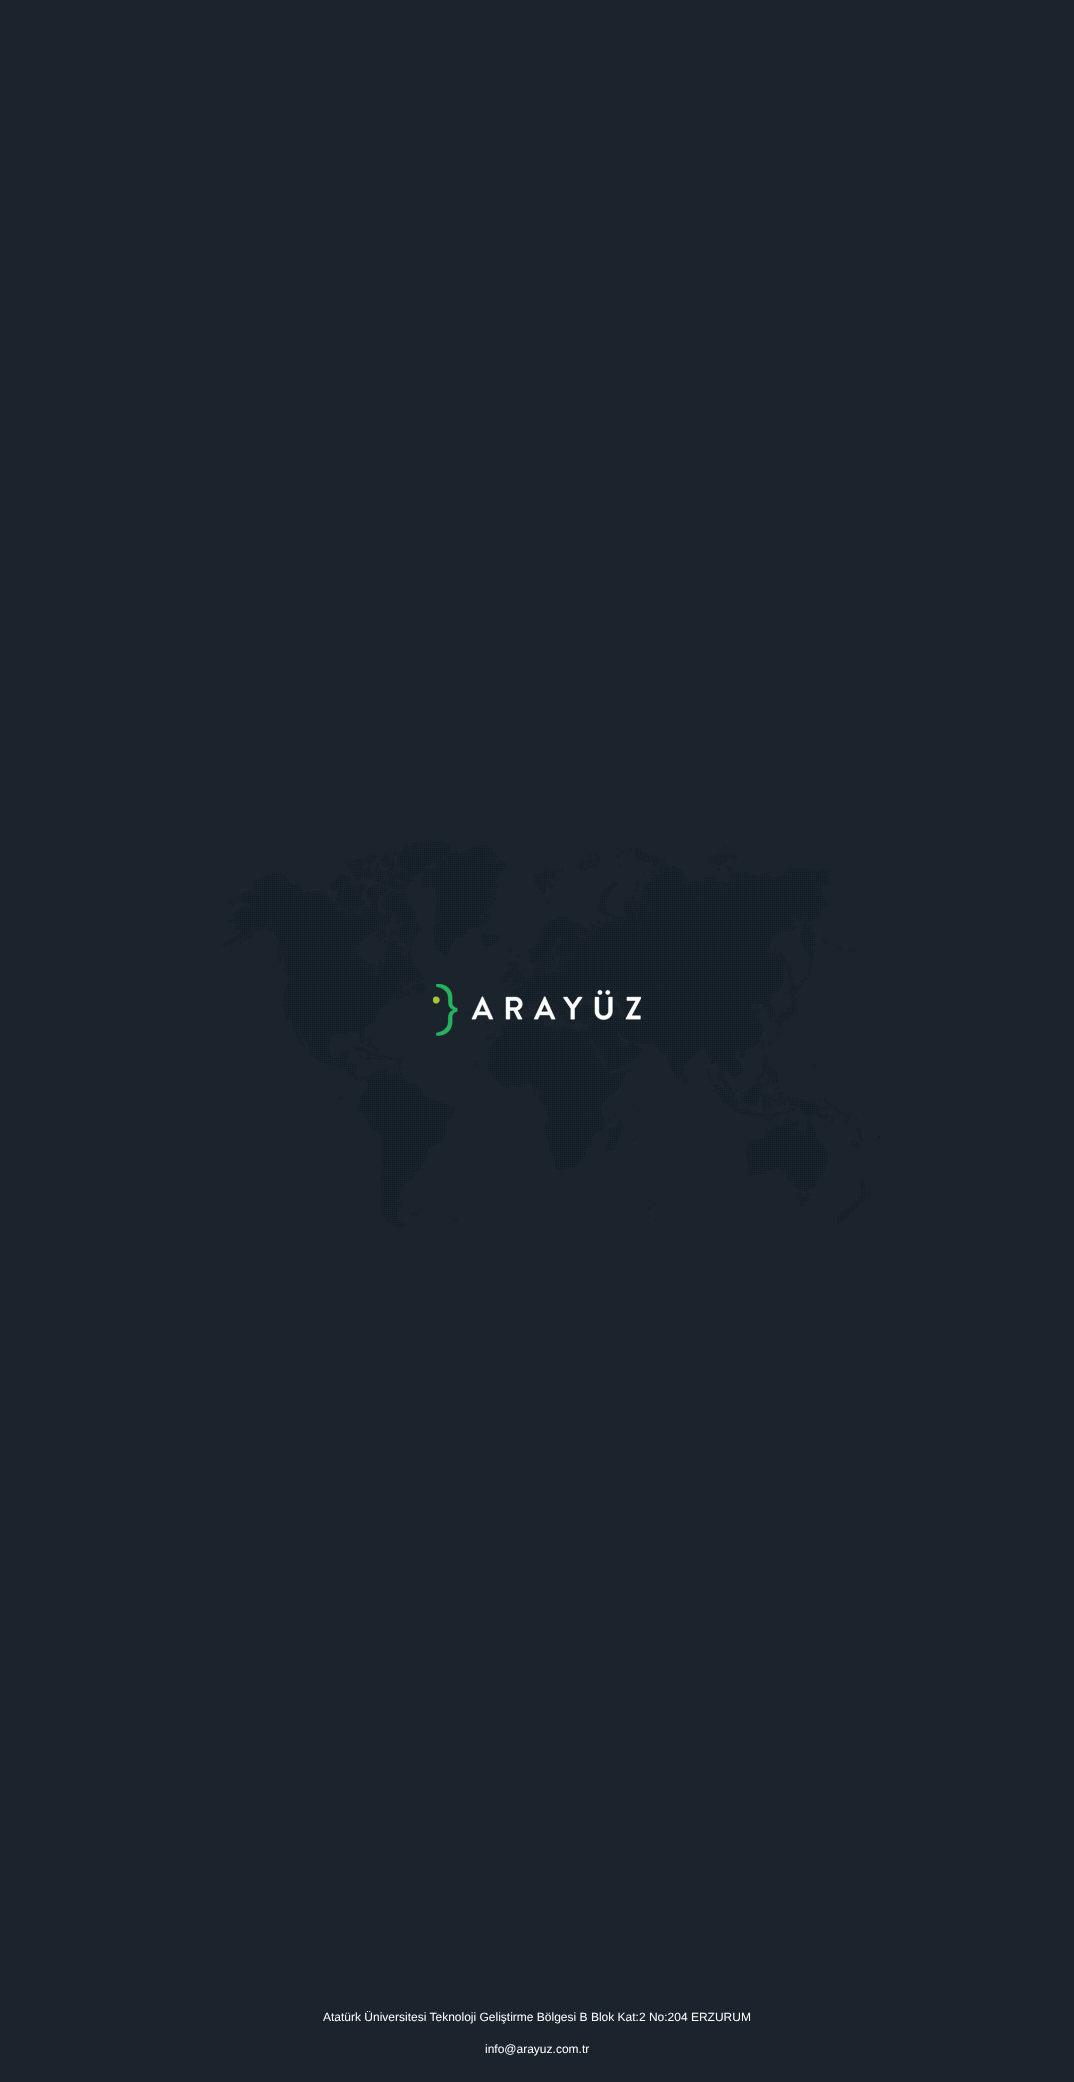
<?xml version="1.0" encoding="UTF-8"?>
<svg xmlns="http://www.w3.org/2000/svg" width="1074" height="2082">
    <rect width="100%" height="100%" fill="#1B242D"/>
    <image x="222" y="840" width="659" height="387" href="img_01.png"/>
    <text x="323" y="2021" font-family="Liberation Sans" font-size="12" fill="#FFFFFF">Atatürk Üniversitesi Teknoloji Geliştirme Bölgesi B Blok Kat:2 No:204 ERZURUM</text>
    <text x="485" y="2053" font-family="Liberation Sans" font-size="12" fill="#FFFFFF">info@arayuz.com.tr</text>
</svg>
